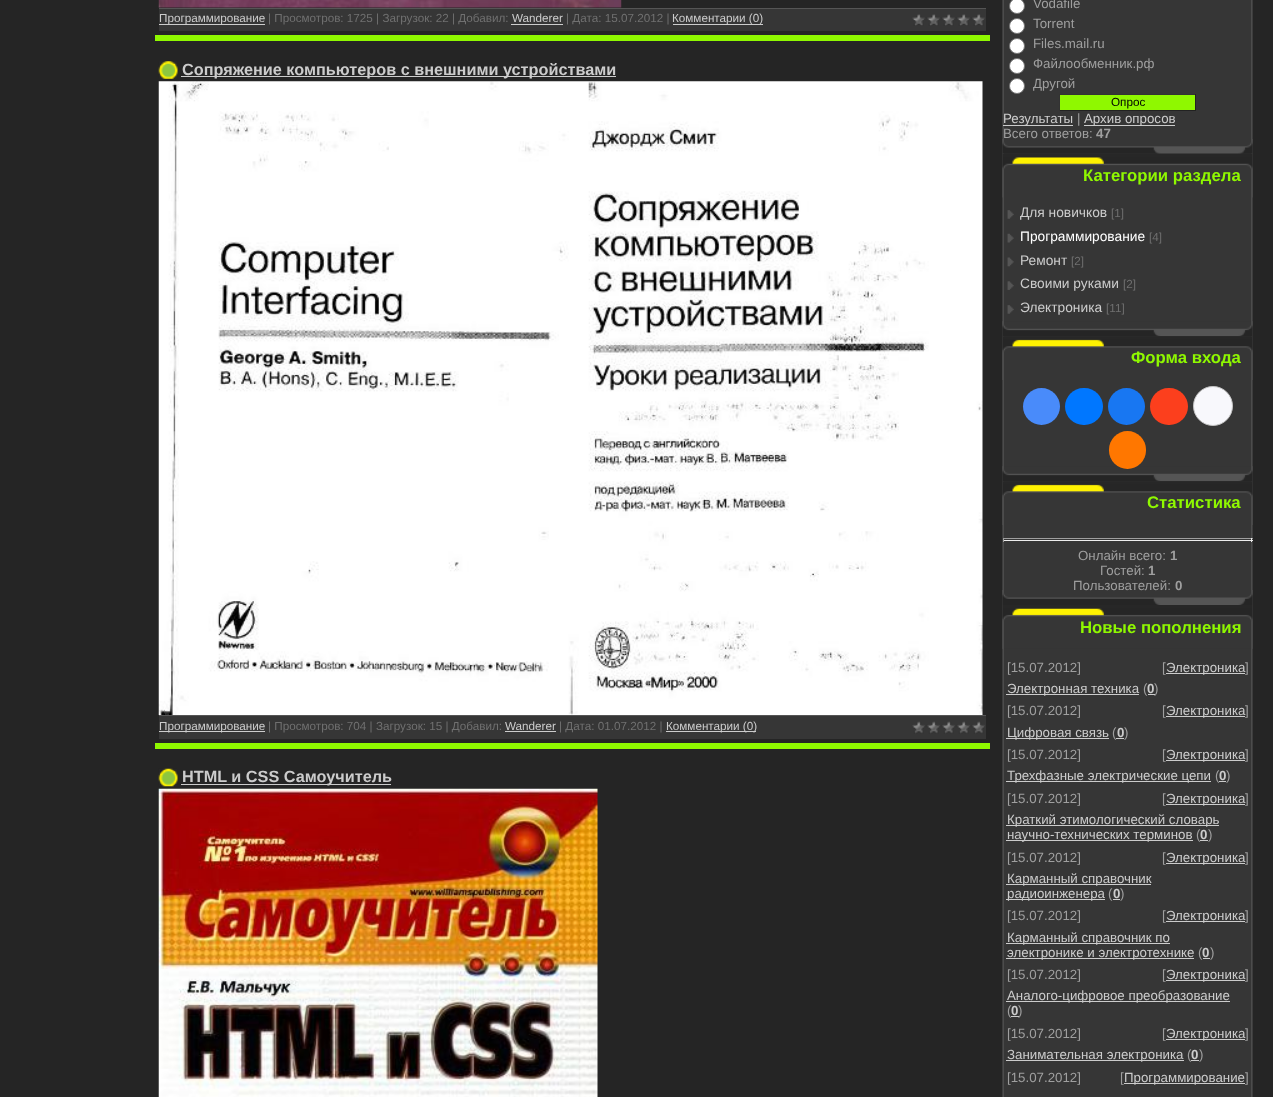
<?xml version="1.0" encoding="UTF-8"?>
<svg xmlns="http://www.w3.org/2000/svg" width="1273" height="1097">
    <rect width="100%" height="100%" fill="#252525"/>
    <rect x="155" y="35" width="835" height="6" fill="#8FF800"/>
    <image x="158" y="0" width="464" height="8" href="img_01.png"/>
    <rect x="159" y="9" width="827" height="22" fill="#363636"/>
    <rect x="159" y="8" width="827" height="1" fill="#555555"/>
    <rect x="159" y="24" width="106" height="1" fill="#CCCCCC"/>
    <text x="159" y="22" font-family="Liberation Sans" font-size="11.7" fill="#CCCCCC">Программирование</text>
    <text x="268" y="22" font-family="Liberation Sans" font-size="11.7" fill="#707070">| Просмотров: 1725 | Загрузок: 22 | Добавил:</text>
    <text x="512" y="22" font-family="Liberation Sans" font-size="11.7" fill="#CCCCCC">Wanderer</text>
    <rect x="511" y="24" width="52" height="1" fill="#CCCCCC"/>
    <text x="566" y="22" font-family="Liberation Sans" font-size="11.7" fill="#707070">| Дата: 15.07.2012 |</text>
    <rect x="673" y="24" width="90" height="1" fill="#CCCCCC"/>
    <text x="672" y="22" font-family="Liberation Sans" font-size="11.7" fill="#CCCCCC">Комментарии (0)</text>
    <image x="912" y="14" width="73" height="12" href="img_02.png"/>
    <rect x="155" y="743" width="835" height="6" fill="#8FF800"/>
    <image x="158" y="61" width="20" height="18" href="img_03.png"/>
    <rect x="181" y="76" width="435" height="1" fill="#CCCCCC"/>
    <text x="182" y="75" font-family="Liberation Sans" font-size="16.25" font-weight="700" fill="#CCCCCC">Сопряжение компьютеров с внешними устройствами</text>
    <image x="158" y="81" width="825" height="634" href="img_04.png"/>
    <rect x="159" y="716" width="827" height="23" fill="#363636"/>
    <rect x="159" y="715" width="827" height="1" fill="#555555"/>
    <rect x="159" y="731" width="106" height="1" fill="#CCCCCC"/>
    <text x="159" y="730" font-family="Liberation Sans" font-size="11.7" fill="#CCCCCC">Программирование</text>
    <text x="268" y="730" font-family="Liberation Sans" font-size="11.7" fill="#707070">| Просмотров: 704 | Загрузок: 15 | Добавил:</text>
    <text x="505" y="730" font-family="Liberation Sans" font-size="11.7" fill="#CCCCCC">Wanderer</text>
    <rect x="505" y="731" width="51" height="1" fill="#CCCCCC"/>
    <text x="559" y="730" font-family="Liberation Sans" font-size="11.7" fill="#707070">| Дата: 01.07.2012 |</text>
    <rect x="666" y="731" width="90" height="1" fill="#CCCCCC"/>
    <text x="666" y="730" font-family="Liberation Sans" font-size="11.7" fill="#CCCCCC">Комментарии (0)</text>
    <image x="912" y="721" width="73" height="13" href="img_05.png"/>
    <image x="158" y="768" width="20" height="19" href="img_06.png"/>
    <rect x="181" y="784" width="210" height="1" fill="#CCCCCC"/>
    <text x="182" y="782" font-family="Liberation Sans" font-size="16.25" font-weight="700" fill="#CCCCCC">HTML и CSS Самоучитель</text>
    <image x="158" y="788" width="440" height="309" href="img_07.png"/>
    <image x="1002" y="0" width="251" height="154" href="img_08.png"/>
    <image x="1002" y="139" width="251" height="15" href="img_09.png"/>
    <circle cx="1017" cy="6" r="7.5" fill="#FFFFFF" stroke="#767676"/>
    <text x="1033" y="8" font-family="Liberation Sans" font-size="13.3" fill="#9F9F9F">Vodafile</text>
    <circle cx="1017" cy="26" r="7.5" fill="#FFFFFF" stroke="#767676"/>
    <text x="1033" y="28" font-family="Liberation Sans" font-size="13.3" fill="#9F9F9F">Torrent</text>
    <circle cx="1017" cy="46" r="7.5" fill="#FFFFFF" stroke="#767676"/>
    <text x="1033" y="48" font-family="Liberation Sans" font-size="13.3" fill="#9F9F9F">Files.mail.ru</text>
    <circle cx="1017" cy="66" r="7.5" fill="#FFFFFF" stroke="#767676"/>
    <text x="1033" y="68" font-family="Liberation Sans" font-size="13.3" fill="#9F9F9F">Файлообменник.рф</text>
    <circle cx="1017" cy="86" r="7.5" fill="#FFFFFF" stroke="#767676"/>
    <text x="1033" y="88" font-family="Liberation Sans" font-size="13.3" fill="#9F9F9F">Другой</text>
    <rect x="1060" y="95" width="135" height="15" fill="#8FF800"/>
    <rect x="1059" y="94" width="137" height="1" fill="#333333"/>
    <rect x="1195" y="94" width="1" height="17" fill="#222222"/>
    <rect x="1059" y="110" width="137" height="1" fill="#222222"/>
    <rect x="1059" y="94" width="1" height="17" fill="#333333"/>
    <text x="1111" y="106" font-family="Liberation Sans" font-size="11.7" fill="#000000">Опрос</text>
    <rect x="1003" y="125" width="70" height="1" fill="#CCCCCC"/>
    <text x="1003" y="123" font-family="Liberation Sans" font-size="13.3" fill="#CCCCCC">Результаты</text>
    <text x="1077" y="123" font-family="Liberation Sans" font-size="13.3" fill="#9F9F9F">|</text>
    <rect x="1084" y="125" width="91" height="1" fill="#CCCCCC"/>
    <text x="1084" y="123" font-family="Liberation Sans" font-size="13.3" fill="#CCCCCC">Архив опросов</text>
    <text x="1003" y="138" font-family="Liberation Sans" font-size="13.3" fill="#9F9F9F">Всего ответов:</text>
    <text x="1096" y="138" font-family="Liberation Sans" font-size="13.3" font-weight="700" fill="#9F9F9F">47</text>
    <image x="1002" y="153" width="251" height="184" href="img_10.png"/>
    <image x="1002" y="153" width="251" height="45" href="img_11.png"/>
    <text x="1083" y="181" font-family="Liberation Sans" font-size="16.75" font-weight="700" fill="#8FF800">Категории раздела</text>
    <image x="1002" y="321" width="251" height="16" href="img_12.png"/>
    <image x="1007" y="210" width="7" height="9" href="img_13.png"/>
    <text x="1020" y="217" font-family="Liberation Sans" font-size="13.75" fill="#CCCCCC">Для новичков</text>
    <text x="1111" y="217" font-family="Liberation Sans" font-size="11.7" fill="#707070">[1]</text>
    <image x="1007" y="233" width="7" height="10" href="img_14.png"/>
    <text x="1020" y="241" font-family="Liberation Sans" font-size="13.75" fill="#FFFFFF">Программирование</text>
    <text x="1149" y="241" font-family="Liberation Sans" font-size="11.7" fill="#707070">[4]</text>
    <image x="1007" y="257" width="7" height="10" href="img_15.png"/>
    <text x="1020" y="265" font-family="Liberation Sans" font-size="13.75" fill="#CCCCCC">Ремонт</text>
    <text x="1071" y="265" font-family="Liberation Sans" font-size="11.7" fill="#707070">[2]</text>
    <image x="1007" y="281" width="7" height="9" href="img_16.png"/>
    <text x="1020" y="288" font-family="Liberation Sans" font-size="13.75" fill="#CCCCCC">Своими руками</text>
    <text x="1123" y="288" font-family="Liberation Sans" font-size="11.7" fill="#707070">[2]</text>
    <image x="1007" y="305" width="7" height="9" href="img_13.png"/>
    <text x="1020" y="312" font-family="Liberation Sans" font-size="13.75" fill="#CCCCCC">Электроника</text>
    <text x="1106" y="312" font-family="Liberation Sans" font-size="11.7" fill="#707070">[11]</text>
    <image x="1002" y="336" width="251" height="146" href="img_17.png"/>
    <image x="1002" y="336" width="251" height="44" href="img_18.png"/>
    <text x="1131" y="363" font-family="Liberation Sans" font-size="16.75" font-weight="700" fill="#8FF800">Форма входа</text>
    <image x="1002" y="466" width="251" height="16" href="img_12.png"/>
    <circle cx="1041.5" cy="406.5" r="18.5" fill="#498BFA"/>
    <rect x="1065" y="388" width="38" height="37" rx="18.5" fill="#0077FF"/>
    <circle cx="1126.5" cy="406.5" r="18.5" fill="#1877F2"/>
    <rect x="1150" y="388" width="38" height="37" rx="18.5" fill="#FC3F1D"/>
    <circle cx="1213" cy="406" r="19.5" fill="#F8F8FC" stroke="#C4C4C4"/>
    <rect x="1109" y="431" width="37" height="38" rx="18.5" fill="#FF7700"/>
    <image x="1002" y="481" width="251" height="124" href="img_19.png"/>
    <image x="1002" y="481" width="251" height="44" href="img_18.png"/>
    <text x="1147" y="508" font-family="Liberation Sans" font-size="16.75" font-weight="700" fill="#8FF800">Статистика</text>
    <image x="1002" y="590" width="251" height="15" href="img_20.png"/>
    <rect x="1003" y="538" width="250" height="1" fill="#9F9F9F"/>
    <rect x="1251" y="538" width="1" height="4" fill="#EEEEEE"/>
    <rect x="1003" y="540" width="250" height="1" fill="#EEEEEE"/>
    <rect x="1003" y="538" width="1" height="4" fill="#9F9F9F"/>
    <text x="1078" y="560" font-family="Liberation Sans" font-size="13.3" fill="#9F9F9F">Онлайн всего:</text>
    <text x="1170" y="560" font-family="Liberation Sans" font-size="13.3" font-weight="700" fill="#9F9F9F">1</text>
    <text x="1100" y="575" font-family="Liberation Sans" font-size="13.3" fill="#9F9F9F">Гостей:</text>
    <text x="1148" y="575" font-family="Liberation Sans" font-size="13.3" font-weight="700" fill="#9F9F9F">1</text>
    <text x="1073" y="590" font-family="Liberation Sans" font-size="13.3" fill="#9F9F9F">Пользователей:</text>
    <text x="1175" y="590" font-family="Liberation Sans" font-size="13.3" font-weight="700" fill="#9F9F9F">0</text>
    <image x="1002" y="605" width="251" height="492" href="img_21.png"/>
    <image x="1002" y="605" width="251" height="44" href="img_22.png"/>
    <text x="1080" y="633" font-family="Liberation Sans" font-size="16.75" font-weight="700" fill="#8FF800">Новые пополнения</text>
    <text x="1007" y="672" font-family="Liberation Sans" font-size="13.3" fill="#9F9F9F">[15.07.2012]</text>
    <text x="1162" y="672" font-family="Liberation Sans" font-size="13.3" fill="#9F9F9F">[</text>
    <rect x="1166" y="673" width="79" height="1" fill="#CCCCCC"/>
    <text x="1166" y="672" font-family="Liberation Sans" font-size="13.3" fill="#CCCCCC">Электроника</text>
    <text x="1245" y="672" font-family="Liberation Sans" font-size="13.3" fill="#9F9F9F">]</text>
    <rect x="1006" y="694" width="133" height="1" fill="#CCCCCC"/>
    <text x="1007" y="693" font-family="Liberation Sans" font-size="13.3" fill="#CCCCCC">Электронная техника</text>
    <text x="1143" y="693" font-family="Liberation Sans" font-size="13.3" fill="#9F9F9F">(</text>
    <text x="1147" y="693" font-family="Liberation Sans" font-size="13.3" font-weight="700" fill="#CCCCCC">0</text>
    <rect x="1148" y="694" width="7" height="1" fill="#CCCCCC"/>
    <text x="1154" y="693" font-family="Liberation Sans" font-size="13.3" fill="#9F9F9F">)</text>
    <text x="1007" y="715" font-family="Liberation Sans" font-size="13.3" fill="#9F9F9F">[15.07.2012]</text>
    <text x="1162" y="715" font-family="Liberation Sans" font-size="13.3" fill="#9F9F9F">[</text>
    <rect x="1166" y="716" width="79" height="1" fill="#CCCCCC"/>
    <text x="1166" y="715" font-family="Liberation Sans" font-size="13.3" fill="#CCCCCC">Электроника</text>
    <text x="1245" y="715" font-family="Liberation Sans" font-size="13.3" fill="#9F9F9F">]</text>
    <rect x="1006" y="738" width="103" height="1" fill="#CCCCCC"/>
    <text x="1007" y="737" font-family="Liberation Sans" font-size="13.3" fill="#CCCCCC">Цифровая связь</text>
    <text x="1112" y="737" font-family="Liberation Sans" font-size="13.3" fill="#9F9F9F">(</text>
    <rect x="1116" y="738" width="8" height="1" fill="#CCCCCC"/>
    <text x="1117" y="737" font-family="Liberation Sans" font-size="13.3" font-weight="700" fill="#CCCCCC">0</text>
    <text x="1124" y="737" font-family="Liberation Sans" font-size="13.3" fill="#9F9F9F">)</text>
    <text x="1007" y="759" font-family="Liberation Sans" font-size="13.3" fill="#9F9F9F">[15.07.2012]</text>
    <text x="1162" y="759" font-family="Liberation Sans" font-size="13.3" fill="#9F9F9F">[</text>
    <rect x="1166" y="760" width="79" height="1" fill="#CCCCCC"/>
    <text x="1166" y="759" font-family="Liberation Sans" font-size="13.3" fill="#CCCCCC">Электроника</text>
    <text x="1245" y="759" font-family="Liberation Sans" font-size="13.3" fill="#9F9F9F">]</text>
    <rect x="1006" y="781" width="205" height="1" fill="#CCCCCC"/>
    <text x="1007" y="780" font-family="Liberation Sans" font-size="13.3" fill="#CCCCCC">Трехфазные электрические цепи</text>
    <text x="1215" y="780" font-family="Liberation Sans" font-size="13.3" fill="#9F9F9F">(</text>
    <rect x="1219" y="781" width="7" height="1" fill="#CCCCCC"/>
    <text x="1219" y="780" font-family="Liberation Sans" font-size="13.3" font-weight="700" fill="#CCCCCC">0</text>
    <text x="1226" y="780" font-family="Liberation Sans" font-size="13.3" fill="#9F9F9F">)</text>
    <text x="1007" y="803" font-family="Liberation Sans" font-size="13.3" fill="#9F9F9F">[15.07.2012]</text>
    <text x="1162" y="803" font-family="Liberation Sans" font-size="13.3" fill="#9F9F9F">[</text>
    <rect x="1166" y="804" width="79" height="1" fill="#CCCCCC"/>
    <text x="1166" y="803" font-family="Liberation Sans" font-size="13.3" fill="#CCCCCC">Электроника</text>
    <text x="1245" y="803" font-family="Liberation Sans" font-size="13.3" fill="#9F9F9F">]</text>
    <rect x="1006" y="825" width="213" height="1" fill="#CCCCCC"/>
    <text x="1007" y="824" font-family="Liberation Sans" font-size="13.3" fill="#CCCCCC">Краткий этимологический словарь</text>
    <rect x="1006" y="840" width="187" height="1" fill="#CCCCCC"/>
    <text x="1007" y="839" font-family="Liberation Sans" font-size="13.3" fill="#CCCCCC">научно-технических терминов</text>
    <text x="1196" y="839" font-family="Liberation Sans" font-size="13.3" fill="#9F9F9F">(</text>
    <rect x="1200" y="840" width="8" height="1" fill="#CCCCCC"/>
    <text x="1200" y="839" font-family="Liberation Sans" font-size="13.3" font-weight="700" fill="#CCCCCC">0</text>
    <text x="1208" y="839" font-family="Liberation Sans" font-size="13.3" fill="#9F9F9F">)</text>
    <text x="1007" y="862" font-family="Liberation Sans" font-size="13.3" fill="#9F9F9F">[15.07.2012]</text>
    <text x="1162" y="862" font-family="Liberation Sans" font-size="13.3" fill="#9F9F9F">[</text>
    <rect x="1166" y="863" width="79" height="1" fill="#CCCCCC"/>
    <text x="1166" y="862" font-family="Liberation Sans" font-size="13.3" fill="#CCCCCC">Электроника</text>
    <text x="1245" y="862" font-family="Liberation Sans" font-size="13.3" fill="#9F9F9F">]</text>
    <rect x="1006" y="884" width="145" height="1" fill="#CCCCCC"/>
    <text x="1007" y="883" font-family="Liberation Sans" font-size="13.3" fill="#CCCCCC">Карманный справочник</text>
    <rect x="1006" y="899" width="99" height="1" fill="#CCCCCC"/>
    <text x="1007" y="898" font-family="Liberation Sans" font-size="13.3" fill="#CCCCCC">радиоинженера</text>
    <text x="1108" y="898" font-family="Liberation Sans" font-size="13.3" fill="#9F9F9F">(</text>
    <rect x="1113" y="899" width="7" height="1" fill="#CCCCCC"/>
    <text x="1113" y="898" font-family="Liberation Sans" font-size="13.3" font-weight="700" fill="#CCCCCC">0</text>
    <text x="1120" y="898" font-family="Liberation Sans" font-size="13.3" fill="#9F9F9F">)</text>
    <text x="1007" y="920" font-family="Liberation Sans" font-size="13.3" fill="#9F9F9F">[15.07.2012]</text>
    <text x="1162" y="920" font-family="Liberation Sans" font-size="13.3" fill="#9F9F9F">[</text>
    <rect x="1166" y="921" width="79" height="1" fill="#CCCCCC"/>
    <text x="1166" y="920" font-family="Liberation Sans" font-size="13.3" fill="#CCCCCC">Электроника</text>
    <text x="1245" y="920" font-family="Liberation Sans" font-size="13.3" fill="#9F9F9F">]</text>
    <rect x="1006" y="943" width="164" height="1" fill="#CCCCCC"/>
    <text x="1007" y="942" font-family="Liberation Sans" font-size="13.3" fill="#CCCCCC">Карманный справочник по</text>
    <rect x="1006" y="958" width="188" height="1" fill="#CCCCCC"/>
    <text x="1007" y="957" font-family="Liberation Sans" font-size="13.3" fill="#CCCCCC">электронике и электротехнике</text>
    <text x="1198" y="957" font-family="Liberation Sans" font-size="13.3" fill="#9F9F9F">(</text>
    <rect x="1203" y="958" width="7" height="1" fill="#CCCCCC"/>
    <text x="1202" y="957" font-family="Liberation Sans" font-size="13.3" font-weight="700" fill="#CCCCCC">0</text>
    <text x="1210" y="957" font-family="Liberation Sans" font-size="13.3" fill="#9F9F9F">)</text>
    <text x="1007" y="979" font-family="Liberation Sans" font-size="13.3" fill="#9F9F9F">[15.07.2012]</text>
    <text x="1162" y="979" font-family="Liberation Sans" font-size="13.3" fill="#9F9F9F">[</text>
    <rect x="1166" y="980" width="79" height="1" fill="#CCCCCC"/>
    <text x="1166" y="979" font-family="Liberation Sans" font-size="13.3" fill="#CCCCCC">Электроника</text>
    <text x="1245" y="979" font-family="Liberation Sans" font-size="13.3" fill="#9F9F9F">]</text>
    <rect x="1006" y="1001" width="224" height="1" fill="#CCCCCC"/>
    <text x="1007" y="1000" font-family="Liberation Sans" font-size="13.3" fill="#CCCCCC">Аналого-цифровое преобразование</text>
    <text x="1007" y="1015" font-family="Liberation Sans" font-size="13.3" fill="#9F9F9F">(</text>
    <rect x="1011" y="1016" width="8" height="1" fill="#CCCCCC"/>
    <text x="1011" y="1015" font-family="Liberation Sans" font-size="13.3" font-weight="700" fill="#CCCCCC">0</text>
    <text x="1018" y="1015" font-family="Liberation Sans" font-size="13.3" fill="#9F9F9F">)</text>
    <text x="1007" y="1038" font-family="Liberation Sans" font-size="13.3" fill="#9F9F9F">[15.07.2012]</text>
    <text x="1162" y="1038" font-family="Liberation Sans" font-size="13.3" fill="#9F9F9F">[</text>
    <rect x="1166" y="1039" width="79" height="1" fill="#CCCCCC"/>
    <text x="1166" y="1038" font-family="Liberation Sans" font-size="13.3" fill="#CCCCCC">Электроника</text>
    <text x="1245" y="1038" font-family="Liberation Sans" font-size="13.3" fill="#9F9F9F">]</text>
    <rect x="1006" y="1060" width="178" height="1" fill="#CCCCCC"/>
    <text x="1007" y="1059" font-family="Liberation Sans" font-size="13.3" fill="#CCCCCC">Занимательная электроника</text>
    <text x="1187" y="1059" font-family="Liberation Sans" font-size="13.3" fill="#9F9F9F">(</text>
    <rect x="1191" y="1060" width="8" height="1" fill="#CCCCCC"/>
    <text x="1191" y="1059" font-family="Liberation Sans" font-size="13.3" font-weight="700" fill="#CCCCCC">0</text>
    <text x="1199" y="1059" font-family="Liberation Sans" font-size="13.3" fill="#9F9F9F">)</text>
    <text x="1007" y="1082" font-family="Liberation Sans" font-size="13.3" fill="#9F9F9F">[15.07.2012]</text>
    <text x="1120" y="1082" font-family="Liberation Sans" font-size="13.3" fill="#9F9F9F">[</text>
    <rect x="1124" y="1083" width="121" height="1" fill="#CCCCCC"/>
    <text x="1124" y="1082" font-family="Liberation Sans" font-size="13.3" fill="#CCCCCC">Программирование</text>
    <text x="1245" y="1082" font-family="Liberation Sans" font-size="13.3" fill="#9F9F9F">]</text>
</svg>
